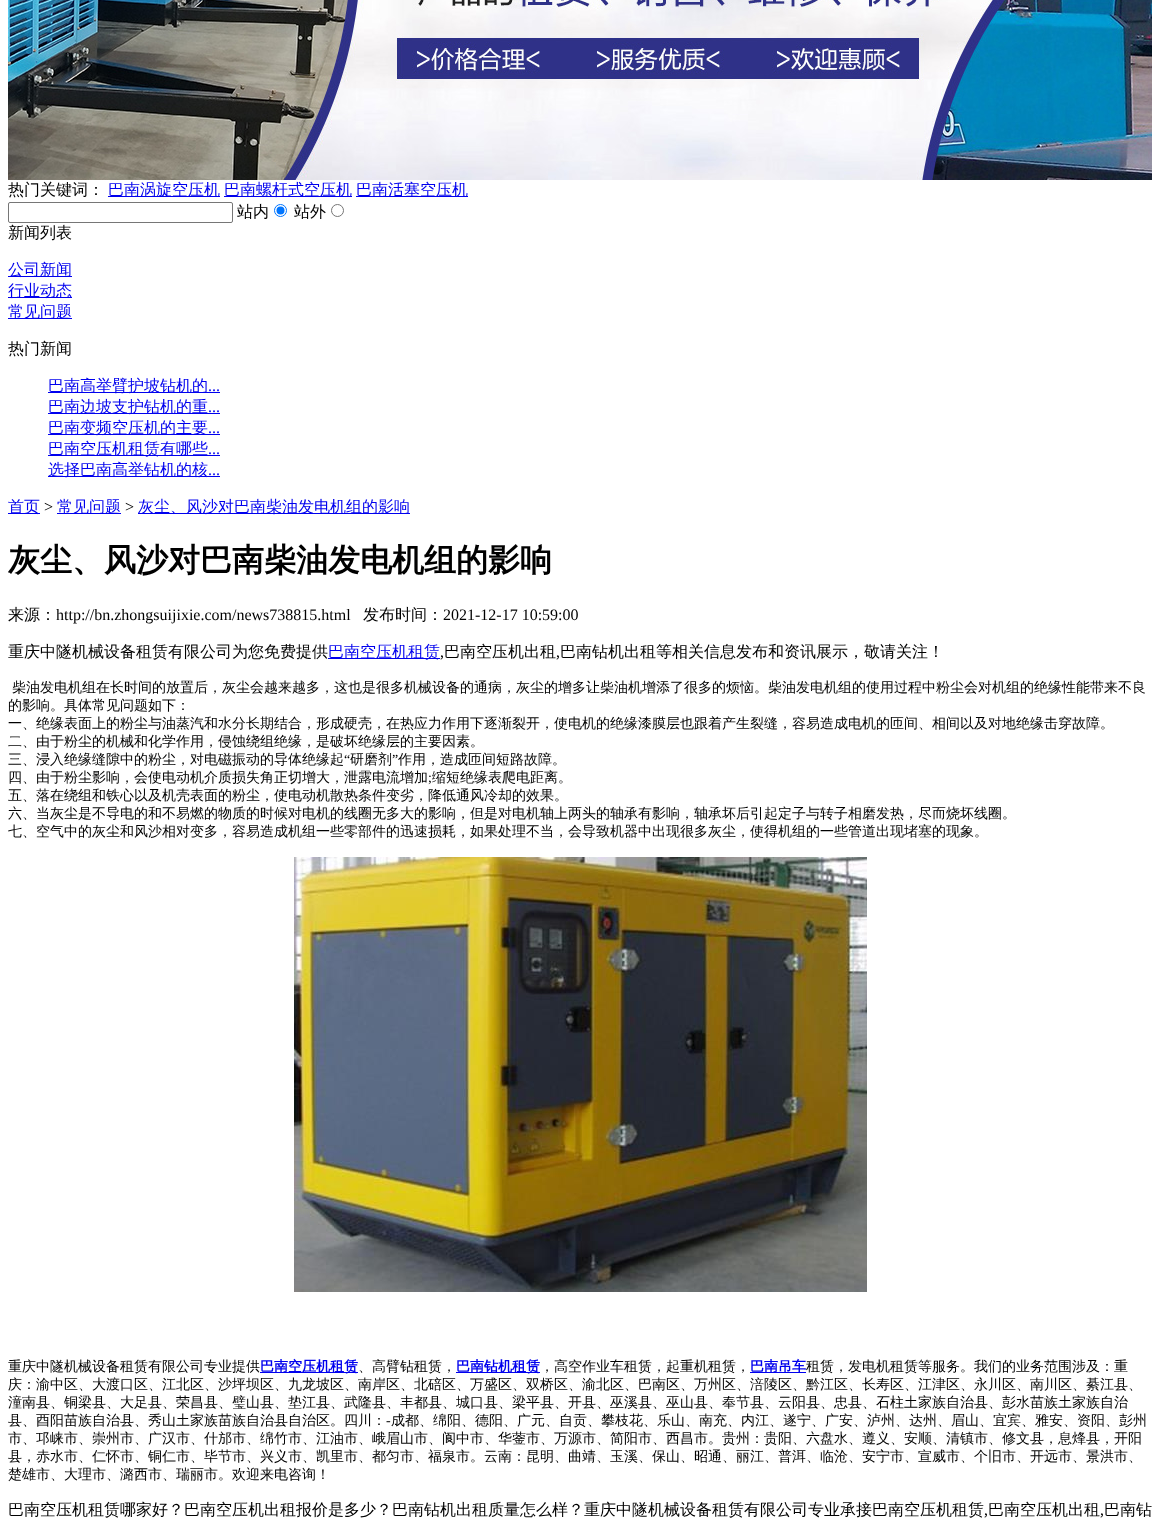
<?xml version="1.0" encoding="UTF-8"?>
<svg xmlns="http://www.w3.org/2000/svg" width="1160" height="1523">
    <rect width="100%" height="100%" fill="#FFFFFF"/>
    <image x="8" y="0" width="1144" height="180" href="img_01.png"/>
    <text x="8" y="195" font-family="WenQuanYi Zen Hei" font-size="16" font-weight="500" fill="#000000">热门关键词：</text>
    <rect x="108" y="196" width="112" height="1" fill="#0000EE"/>
    <text x="108" y="195" font-family="WenQuanYi Zen Hei" font-size="16" font-weight="500" fill="#0000EE">巴南涡旋空压机</text>
    <rect x="224" y="196" width="128" height="1" fill="#0000EE"/>
    <text x="224" y="195" font-family="WenQuanYi Zen Hei" font-size="16" font-weight="500" fill="#0000EE">巴南螺杆式空压机</text>
    <rect x="356" y="196" width="112" height="1" fill="#0000EE"/>
    <text x="356" y="195" font-family="WenQuanYi Zen Hei" font-size="16" font-weight="500" fill="#0000EE">巴南活塞空压机</text>
    <rect x="8.5" y="202.5" width="224" height="20" rx="1.5" fill="none" stroke="#767676"/>
    <text x="237" y="217" font-family="WenQuanYi Zen Hei" font-size="16" font-weight="500" fill="#000000">站内</text>
    <circle cx="280.5" cy="210.5" r="6" fill="none" stroke="#0075FF"/>
    <circle cx="280.5" cy="210.5" r="4" fill="#0075FF"/>
    <text x="294" y="217" font-family="WenQuanYi Zen Hei" font-size="16" font-weight="500" fill="#000000">站外</text>
    <circle cx="337.5" cy="210.5" r="6" fill="none" stroke="#767676"/>
    <text x="8" y="238" font-family="WenQuanYi Zen Hei" font-size="16" font-weight="500" fill="#000000">新闻列表</text>
    <rect x="8" y="276" width="64" height="1" fill="#0000EE"/>
    <text x="8" y="275" font-family="WenQuanYi Zen Hei" font-size="16" font-weight="500" fill="#0000EE">公司新闻</text>
    <rect x="8" y="297" width="64" height="1" fill="#0000EE"/>
    <text x="8" y="296" font-family="WenQuanYi Zen Hei" font-size="16" font-weight="500" fill="#0000EE">行业动态</text>
    <rect x="8" y="318" width="64" height="1" fill="#0000EE"/>
    <text x="8" y="317" font-family="WenQuanYi Zen Hei" font-size="16" font-weight="500" fill="#0000EE">常见问题</text>
    <text x="8" y="354" font-family="WenQuanYi Zen Hei" font-size="16" font-weight="500" fill="#000000">热门新闻</text>
    <rect x="48" y="392" width="172" height="1" fill="#0000EE"/>
    <text x="48" y="391" font-family="WenQuanYi Zen Hei" font-size="16" font-weight="500" fill="#0000EE">巴南高举臂护坡钻机的</text>
    <text x="208" y="391" font-family="Liberation Serif" font-size="16" fill="#0000EE">...</text>
    <rect x="48" y="413" width="172" height="1" fill="#0000EE"/>
    <text x="48" y="412" font-family="WenQuanYi Zen Hei" font-size="16" font-weight="500" fill="#0000EE">巴南边坡支护钻机的重</text>
    <text x="208" y="412" font-family="Liberation Serif" font-size="16" fill="#0000EE">...</text>
    <rect x="48" y="434" width="172" height="1" fill="#0000EE"/>
    <text x="48" y="433" font-family="WenQuanYi Zen Hei" font-size="16" font-weight="500" fill="#0000EE">巴南变频空压机的主要</text>
    <text x="208" y="433" font-family="Liberation Serif" font-size="16" fill="#0000EE">...</text>
    <rect x="48" y="455" width="172" height="1" fill="#0000EE"/>
    <text x="48" y="454" font-family="WenQuanYi Zen Hei" font-size="16" font-weight="500" fill="#0000EE">巴南空压机租赁有哪些</text>
    <text x="208" y="454" font-family="Liberation Serif" font-size="16" fill="#0000EE">...</text>
    <rect x="48" y="476" width="172" height="1" fill="#0000EE"/>
    <text x="48" y="475" font-family="WenQuanYi Zen Hei" font-size="16" font-weight="500" fill="#0000EE">选择巴南高举钻机的核</text>
    <text x="208" y="475" font-family="Liberation Serif" font-size="16" fill="#0000EE">...</text>
    <rect x="8" y="513" width="32" height="1" fill="#0000EE"/>
    <text x="8" y="512" font-family="WenQuanYi Zen Hei" font-size="16" font-weight="500" fill="#0000EE">首页</text>
    <text x="44" y="512" font-family="Liberation Serif" font-size="16" fill="#000000">&gt;</text>
    <rect x="57" y="513" width="64" height="1" fill="#0000EE"/>
    <text x="57" y="512" font-family="WenQuanYi Zen Hei" font-size="16" font-weight="500" fill="#0000EE">常见问题</text>
    <text x="125" y="512" font-family="Liberation Serif" font-size="16" fill="#000000">&gt;</text>
    <rect x="138" y="513" width="272" height="1" fill="#0000EE"/>
    <text x="138" y="512" font-family="WenQuanYi Zen Hei" font-size="16" font-weight="500" fill="#0000EE">灰尘、风沙对巴南柴油发电机组的影响</text>
    <text x="8" y="571" font-family="WenQuanYi Zen Hei" font-size="32" font-weight="700" fill="#000000">灰尘、风沙对巴南柴油发电机组的影响</text>
    <text x="8" y="620" font-family="WenQuanYi Zen Hei" font-size="16" font-weight="500" fill="#000000">来源：</text>
    <text x="56" y="620" font-family="Liberation Serif" font-size="16" fill="#000000">http://bn.zhongsuijixie.com/news738815.html</text>
    <text x="363" y="620" font-family="WenQuanYi Zen Hei" font-size="16" font-weight="500" fill="#000000">发布时间：</text>
    <text x="443" y="620" font-family="Liberation Serif" font-size="16" fill="#000000">2021-12-17 10:59:00</text>
    <text x="8" y="657" font-family="WenQuanYi Zen Hei" font-size="16" font-weight="500" fill="#000000">重庆中隧机械设备租赁有限公司为您免费提供</text>
    <rect x="328" y="658" width="112" height="1" fill="#0000EE"/>
    <text x="328" y="657" font-family="WenQuanYi Zen Hei" font-size="16" font-weight="500" fill="#0000EE">巴南空压机租赁</text>
    <text x="440" y="657" font-family="Liberation Serif" font-size="16" fill="#000000">,</text>
    <text x="444" y="657" font-family="WenQuanYi Zen Hei" font-size="16" font-weight="500" fill="#000000">巴南空压机出租</text>
    <text x="556" y="657" font-family="Liberation Serif" font-size="16" fill="#000000">,</text>
    <text x="560" y="657" font-family="WenQuanYi Zen Hei" font-size="16" font-weight="500" fill="#000000">巴南钻机出租等相关信息发布和资讯展示，敬请关注！</text>
    <text x="12" y="692" font-family="WenQuanYi Zen Hei" font-size="14" font-weight="500" fill="#000000">柴油发电机组在长时间的放置后，灰尘会越来越多，这也是很多机械设备的通病，灰尘的增多让柴油机增添了很多的烦恼。柴油发电机组的使用过程中粉尘会对机组的绝缘性能带来不良</text>
    <text font-family="WenQuanYi Zen Hei" font-size="14" font-weight="500" fill="#000000">
        <tspan x="8" y="710">的影响。具体常见问题如下：</tspan>
        <tspan x="8" y="728">一、绝缘表面上的粉尘与油蒸汽和水分长期结合，形成硬壳，在热应力作用下逐渐裂开，使电机的绝缘漆膜层也跟着产生裂缝，容易造成电机的匝间、相间以及对地绝缘击穿故障。</tspan>
        <tspan x="8" y="746">二、由于粉尘的机械和化学作用，侵蚀绕组绝缘，是破坏绝缘层的主要因素。</tspan>
        <tspan x="8" y="764">三、浸入绝缘缝隙中的粉尘，对电磁振动的导体绝缘起</tspan>
    </text>
    <text x="344" y="764" font-family="Liberation Serif" font-size="14" fill="#000000">“</text>
    <text x="350" y="764" font-family="WenQuanYi Zen Hei" font-size="14" font-weight="500" fill="#000000">研磨剂</text>
    <text x="392" y="764" font-family="Liberation Serif" font-size="14" fill="#000000">”</text>
    <text x="398" y="764" font-family="WenQuanYi Zen Hei" font-size="14" font-weight="500" fill="#000000">作用，造成匝间短路故障。</text>
    <text x="8" y="782" font-family="WenQuanYi Zen Hei" font-size="14" font-weight="500" fill="#000000">四、由于粉尘影响，会使电动机介质损失角正切增大，泄露电流增加</text>
    <text x="428" y="782" font-family="Liberation Serif" font-size="14" fill="#000000">;</text>
    <text x="432" y="782" font-family="WenQuanYi Zen Hei" font-size="14" font-weight="500" fill="#000000">缩短绝缘表爬电距离。</text>
    <text font-family="WenQuanYi Zen Hei" font-size="14" font-weight="500" fill="#000000">
        <tspan x="8" y="800">五、落在绕组和铁心以及机壳表面的粉尘，使电动机散热条件变劣，降低通风冷却的效果。</tspan>
        <tspan x="8" y="818">六、当灰尘是不导电的和不易燃的物质的时候对电机的线圈无多大的影响，但是对电机轴上两头的轴承有影响，轴承坏后引起定子与转子相磨发热，尽而烧坏线圈。</tspan>
        <tspan x="8" y="836">七、空气中的灰尘和风沙相对变多，容易造成机组一些零部件的迅速损耗，如果处理不当，会导致机器中出现很多灰尘，使得机组的一些管道出现堵塞的现象。</tspan>
    </text>
    <image x="294" y="857" width="573" height="435" href="img_02.png"/>
    <text x="8" y="1371" font-family="WenQuanYi Zen Hei" font-size="14" font-weight="500" fill="#000000">重庆中隧机械设备租赁有限公司专业提供</text>
    <rect x="260" y="1372" width="98" height="1" fill="#0000EE"/>
    <text x="260" y="1371" font-family="WenQuanYi Zen Hei" font-size="14" font-weight="700" fill="#0000EE">巴南空压机租赁</text>
    <text x="358" y="1371" font-family="WenQuanYi Zen Hei" font-size="14" font-weight="500" fill="#000000">、高臂钻租赁，</text>
    <rect x="456" y="1372" width="84" height="1" fill="#0000EE"/>
    <text x="456" y="1371" font-family="WenQuanYi Zen Hei" font-size="14" font-weight="700" fill="#0000EE">巴南钻机租赁</text>
    <text x="540" y="1371" font-family="WenQuanYi Zen Hei" font-size="14" font-weight="500" fill="#000000">，高空作业车租赁，起重机租赁，</text>
    <rect x="750" y="1372" width="56" height="1" fill="#0000EE"/>
    <text x="750" y="1371" font-family="WenQuanYi Zen Hei" font-size="14" font-weight="700" fill="#0000EE">巴南吊车</text>
    <text x="806" y="1371" font-family="WenQuanYi Zen Hei" font-size="14" font-weight="500" fill="#000000">租赁，发电机租赁等服务。我们的业务范围涉及：重</text>
    <text font-family="WenQuanYi Zen Hei" font-size="14" font-weight="500" fill="#000000">
        <tspan x="8" y="1389">庆：渝中区、大渡口区、江北区、沙坪坝区、九龙坡区、南岸区、北碚区、万盛区、双桥区、渝北区、巴南区、万州区、涪陵区、黔江区、长寿区、江津区、永川区、南川区、綦江县、</tspan>
        <tspan x="8" y="1407">潼南县、铜梁县、大足县、荣昌县、璧山县、垫江县、武隆县、丰都县、城口县、梁平县、开县、巫溪县、巫山县、奉节县、云阳县、忠县、石柱土家族自治县、彭水苗族土家族自治</tspan>
        <tspan x="8" y="1425">县、酉阳苗族自治县、秀山土家族苗族自治县自治区。四川：</tspan>
    </text>
    <text x="386" y="1425" font-family="Liberation Serif" font-size="14" fill="#000000">-</text>
    <text x="391" y="1425" font-family="WenQuanYi Zen Hei" font-size="14" font-weight="500" fill="#000000">成都、绵阳、德阳、广元、自贡、攀枝花、乐山、南充、内江、遂宁、广安、泸州、达州、眉山、宜宾、雅安、资阳、彭州</text>
    <text font-family="WenQuanYi Zen Hei" font-size="14" font-weight="500" fill="#000000">
        <tspan x="8" y="1443">市、邛崃市、崇州市、广汉市、什邡市、绵竹市、江油市、峨眉山市、阆中市、华蓥市、万源市、简阳市、西昌市。贵州：贵阳、六盘水、遵义、安顺、清镇市、修文县，息烽县，开阳</tspan>
        <tspan x="8" y="1461">县，赤水市、仁怀市、铜仁市、毕节市、兴义市、凯里市、都匀市、福泉市。云南：昆明、曲靖、玉溪、保山、昭通、丽江、普洱、临沧、安宁市、宣威市、个旧市、开远市、景洪市、</tspan>
        <tspan x="8" y="1479">楚雄市、大理市、潞西市、瑞丽市。欢迎来电咨询！</tspan>
    </text>
    <text x="8" y="1515" font-family="WenQuanYi Zen Hei" font-size="16" font-weight="500" fill="#000000">巴南空压机租赁哪家好？巴南空压机出租报价是多少？巴南钻机出租质量怎么样？重庆中隧机械设备租赁有限公司专业承接巴南空压机租赁</text>
    <text x="984" y="1515" font-family="Liberation Serif" font-size="16" fill="#000000">,</text>
    <text x="988" y="1515" font-family="WenQuanYi Zen Hei" font-size="16" font-weight="500" fill="#000000">巴南空压机出租</text>
    <text x="1100" y="1515" font-family="Liberation Serif" font-size="16" fill="#000000">,</text>
    <text x="1104" y="1515" font-family="WenQuanYi Zen Hei" font-size="16" font-weight="500" fill="#000000">巴南钻</text>
</svg>
